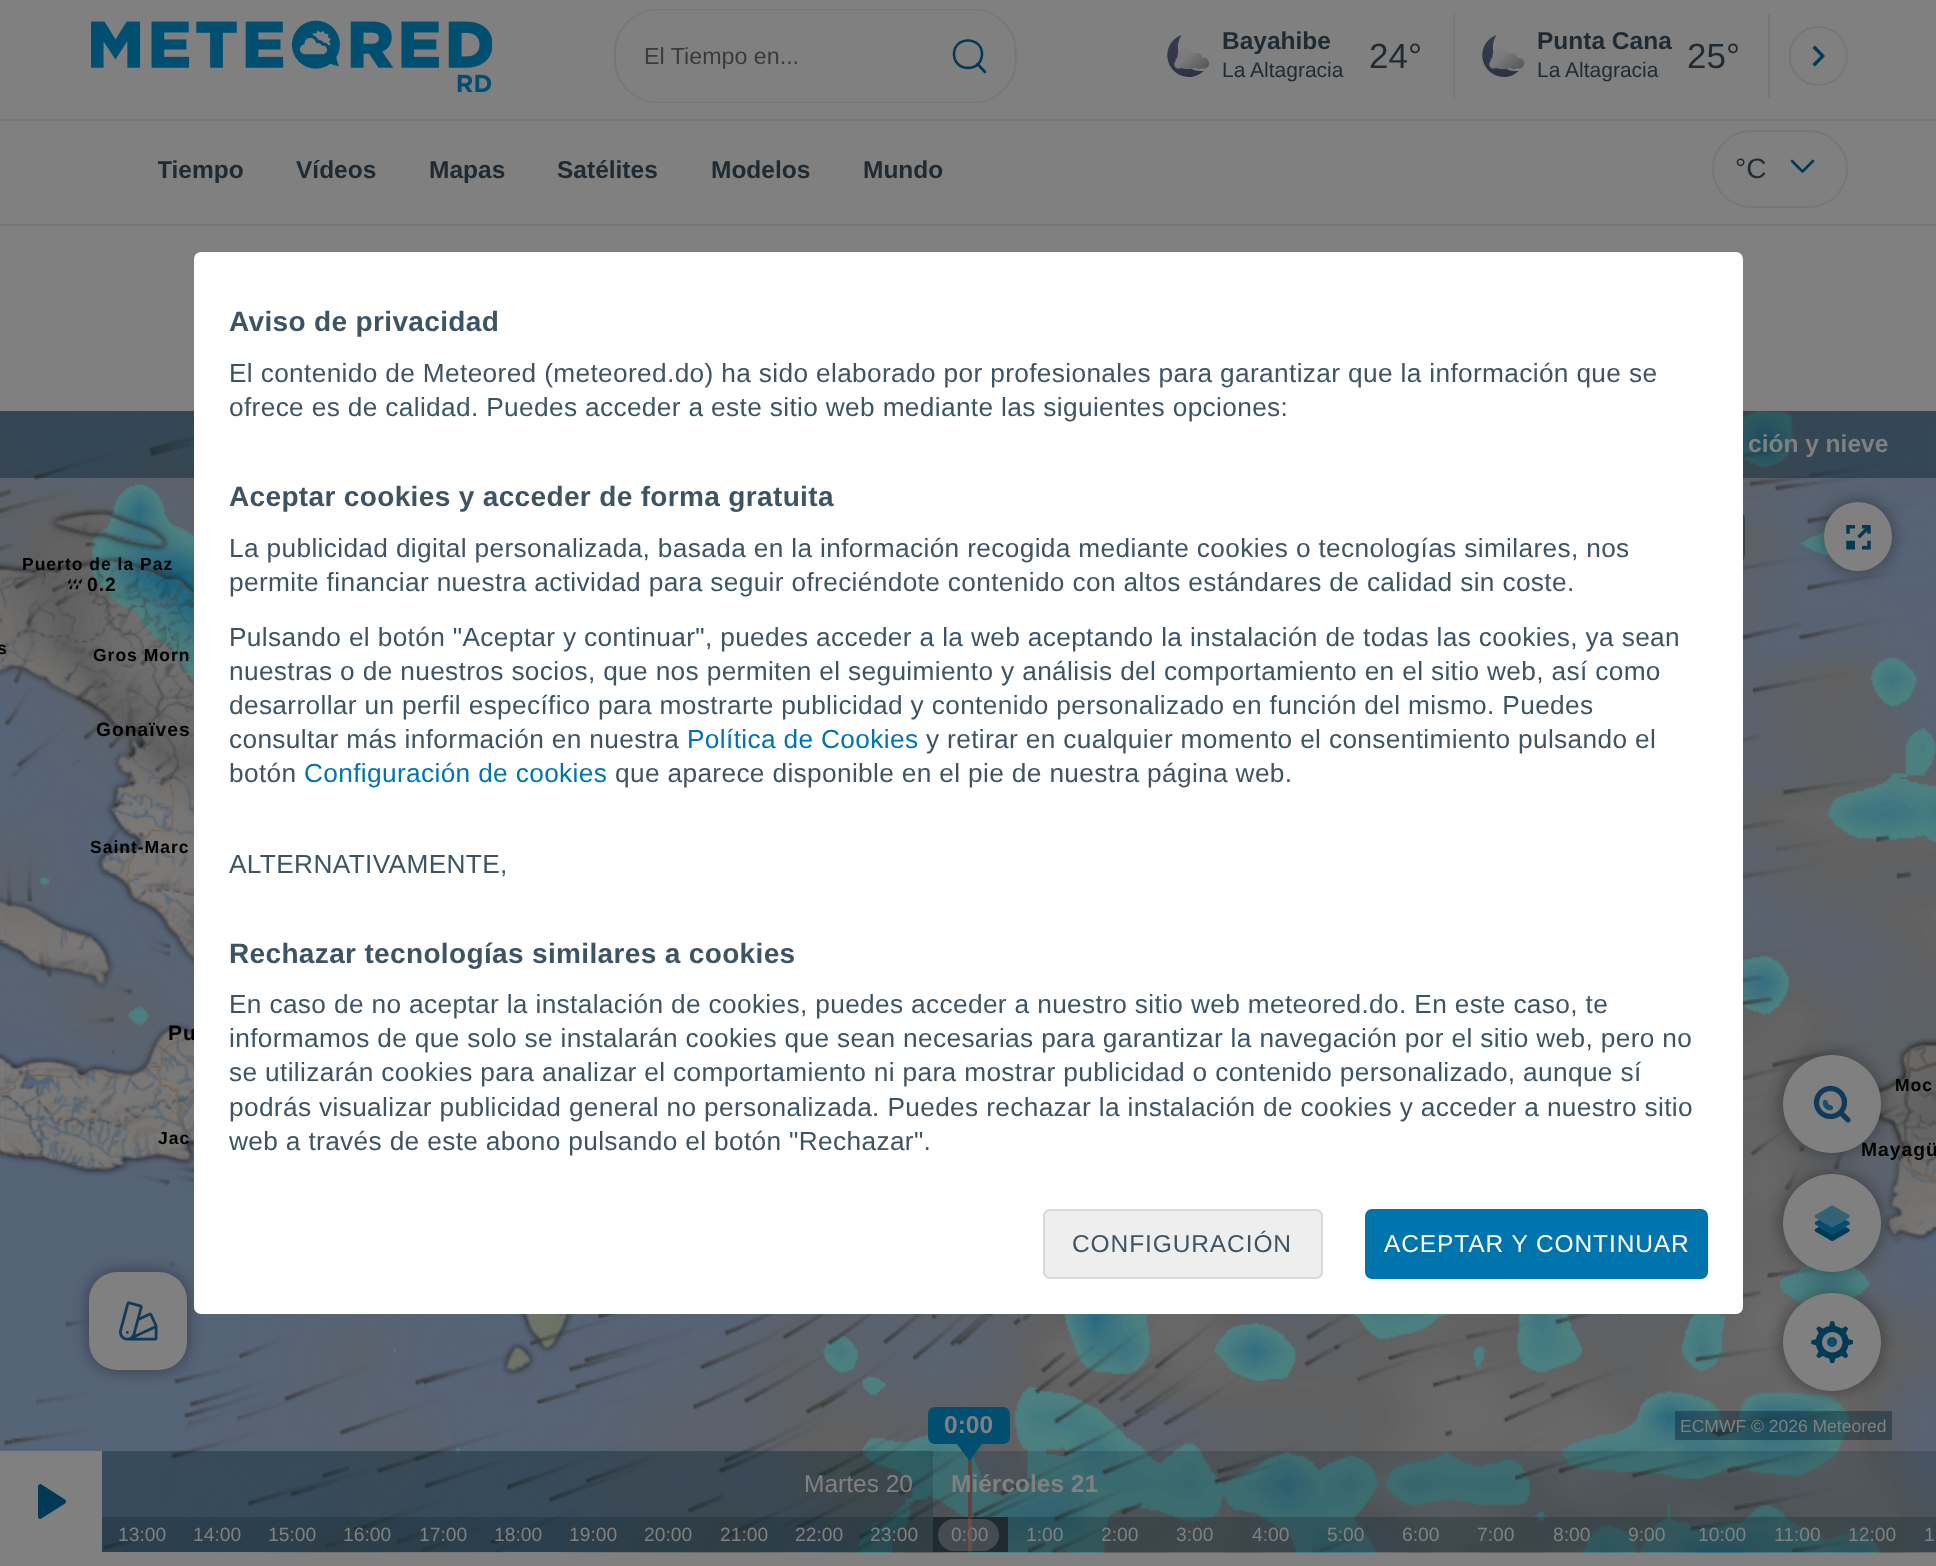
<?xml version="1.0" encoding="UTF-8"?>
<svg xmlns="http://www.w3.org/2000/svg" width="1936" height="1566">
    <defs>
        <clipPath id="clip1"><rect x="158" y="121" width="1400" height="96"/></clipPath>
        <filter id="blur1" x="-50%" y="-200%" width="200%" height="500%"><feGaussianBlur stdDeviation="9"/></filter>
    </defs>
    <rect width="100%" height="100%" fill="#808080"/>
    <rect x="0" y="119" width="1936" height="2" fill="#767778"/>
    <image x="91" y="20" width="401" height="72" href="img_01.png"/>
    <path d="M 658 9 H 924 V 103 H 658 C 634 103 614 84 614 60 V 52 C 614 28 634 9 658 9 Z M 658 10 H 924 V 102 H 658 C 635 102 616 83 616 60 V 52 C 616 29 635 10 658 10 Z" fill="#767778" fill-rule="evenodd"/>
    <text x="644" y="64" font-family="Liberation Sans" font-size="23.25" fill="#3B3B3B">El Tiempo en...</text>
    <path d="M 924 9 H 973 C 997 9 1017 28 1017 52 V 60 C 1017 84 997 103 973 103 H 924 Z M 924 10 H 973 C 996 10 1015 29 1015 52 V 60 C 1015 83 996 102 973 102 H 924 Z" fill="#767778" fill-rule="evenodd"/>
    <path d="M 985 72 L 977.5 64 M 982 54 C 982 72.5 954 72.5 954 54 C 954 36 982 36 982 54 Z" fill="none" stroke="#003A57" stroke-width="2.6" stroke-linecap="round" stroke-linejoin="round"/>
    <image x="1167" y="35" width="43" height="42" href="img_02.png"/>
    <text x="1222" y="49" font-family="Liberation Sans" font-size="24.5" font-weight="700" fill="#1F2A32">Bayahibe</text>
    <text x="1222" y="77" font-family="Liberation Sans" font-size="21" fill="#1F2A32">La Altagracia</text>
    <text x="1369" y="68" font-family="Liberation Sans" font-size="35" fill="#1F2A32">24°</text>
    <rect x="1453" y="14" width="2" height="84" fill="#767778"/>
    <image x="1482" y="35" width="43" height="42" href="img_03.png"/>
    <text x="1537" y="49" font-family="Liberation Sans" font-size="24.5" font-weight="700" fill="#1F2A32">Punta Cana</text>
    <text x="1537" y="77" font-family="Liberation Sans" font-size="21" fill="#1F2A32">La Altagracia</text>
    <text x="1687" y="68" font-family="Liberation Sans" font-size="35" fill="#1F2A32">25°</text>
    <rect x="1768" y="14" width="2" height="84" fill="#767778"/>
    <rect x="1790" y="27" width="57" height="58" rx="28.5" fill="none" stroke="#767778" stroke-width="2"/>
    <path d="M 1815 45.5 L 1812.5 48 L 1820.5 56 L 1812.5 64 L 1815 66.5 L 1825 56 Z" fill="#003A57"/>
    <rect x="0" y="224" width="1936" height="2" fill="#767778"/>
    <g clip-path="url(#clip1)">
        <text x="157" y="178" font-family="Liberation Sans" font-size="24.5" font-weight="700" fill="#1F2A32">Tiempo</text>
    </g>
    <text x="296" y="178" font-family="Liberation Sans" font-size="24.5" font-weight="700" fill="#1F2A32">Vídeos</text>
    <text x="429" y="178" font-family="Liberation Sans" font-size="24.5" font-weight="700" fill="#1F2A32">Mapas</text>
    <text x="557" y="178" font-family="Liberation Sans" font-size="24.5" font-weight="700" fill="#1F2A32">Satélites</text>
    <text x="711" y="178" font-family="Liberation Sans" font-size="24.5" font-weight="700" fill="#1F2A32">Modelos</text>
    <text x="863" y="178" font-family="Liberation Sans" font-size="24.5" font-weight="700" fill="#1F2A32">Mundo</text>
    <rect x="1713" y="131" width="134" height="76" rx="38" fill="none" stroke="#767778" stroke-width="2"/>
    <text x="1735" y="178" font-family="Liberation Sans" font-size="28" fill="#1F2A32">°C</text>
    <path d="M 1792 161 L 1802.5 171.5 L 1813 161" fill="none" stroke="#003A57" stroke-width="2.6" stroke-linecap="round" stroke-linejoin="round"/>
    <rect x="0" y="411" width="1936" height="1141" fill="#566478"/>
    <image x="1743" y="411" width="55" height="366" href="img_07.png"/>
    <image x="1797" y="411" width="139" height="366" href="img_08.png"/>
    <image x="5" y="508" width="189" height="269" href="img_20.png"/>
    <image x="5" y="411" width="189" height="366" href="img_06.png"/>
    <image x="0" y="562" width="5" height="115" href="img_19.png"/>
    <image x="0" y="411" width="6" height="300" href="img_05.png"/>
    <image x="5" y="777" width="189" height="399" href="img_22.png"/>
    <image x="5" y="777" width="189" height="418" href="img_10.png"/>
    <image x="0" y="894" width="5" height="265" href="img_21.png"/>
    <image x="0" y="813" width="6" height="253" href="img_09.png"/>
    <image x="1743" y="777" width="55" height="448" href="img_11.png"/>
    <image x="1877" y="1038" width="59" height="187" href="img_23.png"/>
    <image x="1797" y="777" width="139" height="448" href="img_12.png"/>
    <image x="157" y="1314" width="296" height="239" href="img_13.png"/>
    <image x="501" y="1314" width="73" height="63" href="img_25.png"/>
    <image x="453" y="1314" width="449" height="239" href="img_14.png"/>
    <image x="901" y="1314" width="449" height="239" href="img_15.png"/>
    <image x="1349" y="1225" width="449" height="328" href="img_16.png"/>
    <image x="1883" y="1225" width="53" height="19" href="img_24.png"/>
    <image x="1797" y="1225" width="139" height="328" href="img_17.png"/>
    <image x="0" y="435" width="1916" height="1118" href="img_18.png"/>
    <rect x="1824" y="502" width="68" height="69" rx="34" fill="#000000" fill-opacity="0.4" filter="url(#blur1)"/>
    <rect x="0" y="411" width="1936" height="67" fill="#001E2D" fill-opacity="0.4"/>
    <rect x="1173" y="509" width="572" height="56" rx="11" fill="#001E2D" fill-opacity="0.4"/>
    <text x="168" y="1040" font-family="Liberation Sans" font-size="21" font-weight="700" letter-spacing="1" fill="#000000">Pu</text>
    <rect x="89" y="1272" width="98" height="98" rx="28" fill="#000000" fill-opacity="0.4" filter="url(#blur1)"/>
    <rect x="194" y="252" width="1549" height="1062" rx="7" fill="#FFFFFF"/>
    <text x="229" y="331" font-family="Liberation Sans" font-size="28" font-weight="700" letter-spacing="0.35" fill="#3E5463">Aviso de privacidad</text>
    <text font-family="Liberation Sans" font-size="26.25" letter-spacing="0.35" fill="#3E5463">
        <tspan x="229" y="382">El contenido de Meteored (meteored.do) ha sido elaborado por profesionales para garantizar que la información que se</tspan>
        <tspan x="229" y="416">ofrece es de calidad. Puedes acceder a este sitio web mediante las siguientes opciones:</tspan>
    </text>
    <text x="229" y="506" font-family="Liberation Sans" font-size="28" font-weight="700" letter-spacing="0.35" fill="#3E5463">Aceptar cookies y acceder de forma gratuita</text>
    <text font-family="Liberation Sans" font-size="26.25" letter-spacing="0.35" fill="#3E5463">
        <tspan x="229" y="557">La publicidad digital personalizada, basada en la información recogida mediante cookies o tecnologías similares, nos</tspan>
        <tspan x="229" y="591">permite financiar nuestra actividad para seguir ofreciéndote contenido con altos estándares de calidad sin coste.</tspan>
    </text>
    <text font-family="Liberation Sans" font-size="26.25" letter-spacing="0.35" fill="#3E5463">
        <tspan x="229" y="646">Pulsando el botón "Aceptar y continuar", puedes acceder a la web aceptando la instalación de todas las cookies, ya sean</tspan>
        <tspan x="229" y="680">nuestras o de nuestros socios, que nos permiten el seguimiento y análisis del comportamiento en el sitio web, así como</tspan>
        <tspan x="229" y="714">desarrollar un perfil específico para mostrarte publicidad y contenido personalizado en función del mismo. Puedes</tspan>
        <tspan x="229" y="748">consultar más información en nuestra</tspan>
    </text>
    <text x="687" y="748" font-family="Liberation Sans" font-size="26.25" letter-spacing="0.35" fill="#0074AD">Política de Cookies</text>
    <text x="926" y="748" font-family="Liberation Sans" font-size="26.25" letter-spacing="0.35" fill="#3E5463">y retirar en cualquier momento el consentimiento pulsando el</text>
    <text x="229" y="782" font-family="Liberation Sans" font-size="26.25" letter-spacing="0.35" fill="#3E5463">botón</text>
    <text x="304" y="782" font-family="Liberation Sans" font-size="26.25" letter-spacing="0.35" fill="#0074AD">Configuración de cookies</text>
    <text x="615" y="782" font-family="Liberation Sans" font-size="26.25" letter-spacing="0.35" fill="#3E5463">que aparece disponible en el pie de nuestra página web.</text>
    <text x="229" y="873" font-family="Liberation Sans" font-size="26.25" letter-spacing="0.35" fill="#3E5463">ALTERNATIVAMENTE,</text>
    <text x="229" y="963" font-family="Liberation Sans" font-size="28" font-weight="700" letter-spacing="0.35" fill="#3E5463">Rechazar tecnologías similares a cookies</text>
    <text font-family="Liberation Sans" font-size="26.25" letter-spacing="0.35" fill="#3E5463">
        <tspan x="229" y="1013">En caso de no aceptar la instalación de cookies, puedes acceder a nuestro sitio web meteored.do. En este caso, te</tspan>
        <tspan x="229" y="1047">informamos de que solo se instalarán cookies que sean necesarias para garantizar la navegación por el sitio web, pero no</tspan>
        <tspan x="229" y="1081">se utilizarán cookies para analizar el comportamiento ni para mostrar publicidad o contenido personalizado, aunque sí</tspan>
        <tspan x="229" y="1116">podrás visualizar publicidad general no personalizada. Puedes rechazar la instalación de cookies y acceder a nuestro sitio</tspan>
        <tspan x="229" y="1150">web a través de este abono pulsando el botón "Rechazar".</tspan>
    </text>
    <rect x="1044" y="1210" width="278" height="68" rx="6" fill="#EEEEEE" stroke="#D8D8D8" stroke-width="2"/>
    <text x="1072" y="1252" font-family="Liberation Sans" font-size="24.5" letter-spacing="0.9" fill="#3E5463">CONFIGURACIÓN</text>
    <rect x="1365" y="1209" width="343" height="70" rx="7" fill="#0074AD"/>
    <text x="1384" y="1252" font-family="Liberation Sans" font-size="24.5" letter-spacing="0.9" fill="#FFFFFF">ACEPTAR Y CONTINUAR</text>
    <text x="1748" y="452" font-family="Liberation Sans" font-size="24.5" font-weight="700" fill="#808080">ción y nieve</text>
    <rect x="1824" y="502" width="68" height="69" rx="34" fill="#808080"/>
    <image x="1846" y="525" width="25" height="25" href="img_04.png"/>
    <text x="-3" y="654" font-family="Liberation Sans" font-size="17.5" font-weight="700" letter-spacing="1" fill="#000000">s</text>
    <text x="22" y="570" font-family="Liberation Sans" font-size="17.5" font-weight="700" letter-spacing="1" fill="#000000">Puerto de la Paz</text>
    <image x="67" y="578" width="15" height="12" href="img_26.png"/>
    <text x="87" y="591" font-family="Liberation Sans" font-size="19.25" font-weight="700" letter-spacing="1" fill="#000000">0.2</text>
    <text x="93" y="661" font-family="Liberation Sans" font-size="17.5" font-weight="700" letter-spacing="1" fill="#000000">Gros Morn</text>
    <text x="96" y="736" font-family="Liberation Sans" font-size="19.25" font-weight="700" letter-spacing="1" fill="#000000">Gonaïves</text>
    <text x="90" y="853" font-family="Liberation Sans" font-size="17.5" font-weight="700" letter-spacing="1" fill="#000000">Saint-Marc</text>
    <text x="158" y="1144" font-family="Liberation Sans" font-size="17.5" font-weight="700" letter-spacing="1" fill="#000000">Jac</text>
    <text x="1895" y="1091" font-family="Liberation Sans" font-size="17.5" font-weight="700" letter-spacing="1" fill="#000000">Moc</text>
    <text x="1861" y="1156" font-family="Liberation Sans" font-size="19.25" font-weight="700" letter-spacing="1" fill="#000000">Mayagü</text>
    <rect x="0" y="1451" width="102" height="101" fill="#808080"/>
    <path d="M 38 1486.5 C 38 1484.5 40 1483.5 41.5 1484.5 L 65 1499.5 C 66.5 1500.5 66.5 1502.5 65 1503.5 L 41.5 1518.5 C 40 1519.5 38 1518.5 38 1516.5 Z" fill="#003A57"/>
    <rect x="928" y="1407" width="82" height="37" rx="7" fill="#004F71"/>
    <text x="944" y="1433" font-family="Liberation Sans" font-size="24.5" font-weight="700" fill="#808080">0:00</text>
    <rect x="102" y="1517" width="1834" height="35" fill="#1F2A32" fill-opacity="0.3"/>
    <rect x="933" y="1451" width="1003" height="101" fill="#001E2D" fill-opacity="0.2"/>
    <rect x="933" y="1517" width="75" height="35" fill="#1F2A32"/>
    <text x="951" y="1541" font-family="Liberation Sans" font-size="19.25" fill="#808080">0:00</text>
    <rect x="968" y="1451" width="4" height="101" fill="#75312A" fill-opacity="0.7"/>
    <path d="M 957 1444 H 982 L 969.5 1461 Z" fill="#004F71"/>
    <rect x="938" y="1519" width="61" height="32" rx="16" fill="#808080" fill-opacity="0.4"/>
    <rect x="102" y="1451" width="831" height="101" fill="#001E2D" fill-opacity="0.36"/>
    <text x="804" y="1492" font-family="Liberation Sans" font-size="24.5" fill="#808080">Martes 20</text>
    <text x="118" y="1541" font-family="Liberation Sans" font-size="19.25" fill="#808080">13:00</text>
    <text x="193" y="1541" font-family="Liberation Sans" font-size="19.25" fill="#808080">14:00</text>
    <text x="268" y="1541" font-family="Liberation Sans" font-size="19.25" fill="#808080">15:00</text>
    <text x="343" y="1541" font-family="Liberation Sans" font-size="19.25" fill="#808080">16:00</text>
    <text x="419" y="1541" font-family="Liberation Sans" font-size="19.25" fill="#808080">17:00</text>
    <text x="494" y="1541" font-family="Liberation Sans" font-size="19.25" fill="#808080">18:00</text>
    <text x="569" y="1541" font-family="Liberation Sans" font-size="19.25" fill="#808080">19:00</text>
    <text x="644" y="1541" font-family="Liberation Sans" font-size="19.25" fill="#808080">20:00</text>
    <text x="720" y="1541" font-family="Liberation Sans" font-size="19.25" fill="#808080">21:00</text>
    <text x="795" y="1541" font-family="Liberation Sans" font-size="19.25" fill="#808080">22:00</text>
    <text x="870" y="1541" font-family="Liberation Sans" font-size="19.25" fill="#808080">23:00</text>
    <text x="951" y="1492" font-family="Liberation Sans" font-size="24.5" font-weight="700" fill="#808080">Miércoles 21</text>
    <text x="1026" y="1541" font-family="Liberation Sans" font-size="19.25" fill="#808080">1:00</text>
    <text x="1101" y="1541" font-family="Liberation Sans" font-size="19.25" fill="#808080">2:00</text>
    <text x="1176" y="1541" font-family="Liberation Sans" font-size="19.25" fill="#808080">3:00</text>
    <text x="1252" y="1541" font-family="Liberation Sans" font-size="19.25" fill="#808080">4:00</text>
    <text x="1327" y="1541" font-family="Liberation Sans" font-size="19.25" fill="#808080">5:00</text>
    <text x="1402" y="1541" font-family="Liberation Sans" font-size="19.25" fill="#808080">6:00</text>
    <text x="1477" y="1541" font-family="Liberation Sans" font-size="19.25" fill="#808080">7:00</text>
    <text x="1553" y="1541" font-family="Liberation Sans" font-size="19.25" fill="#808080">8:00</text>
    <text x="1628" y="1541" font-family="Liberation Sans" font-size="19.25" fill="#808080">9:00</text>
    <text x="1698" y="1541" font-family="Liberation Sans" font-size="19.25" fill="#808080">10:00</text>
    <text x="1774" y="1541" font-family="Liberation Sans" font-size="19.25" fill="#808080">11:00</text>
    <text x="1848" y="1541" font-family="Liberation Sans" font-size="19.25" fill="#808080">12:00</text>
    <text x="1924" y="1541" font-family="Liberation Sans" font-size="19.25" fill="#808080">1</text>
    <rect x="89" y="1272" width="98" height="98" rx="28" fill="#808080"/>
    <image x="119" y="1301" width="39" height="40" href="img_27.png"/>
    <rect x="1783" y="1055" width="98" height="98" rx="49" fill="#000000" fill-opacity="0.4" filter="url(#blur1)"/>
    <circle cx="1832" cy="1104" r="49" fill="#808080"/>
    <image x="1813" y="1085" width="38" height="38" href="img_28.png"/>
    <rect x="1783" y="1174" width="98" height="98" rx="49" fill="#000000" fill-opacity="0.4" filter="url(#blur1)"/>
    <circle cx="1832" cy="1223" r="49" fill="#808080"/>
    <image x="1814" y="1205" width="36" height="37" href="img_29.png"/>
    <rect x="1783" y="1293" width="98" height="98" rx="49" fill="#000000" fill-opacity="0.4" filter="url(#blur1)"/>
    <circle cx="1832" cy="1342" r="49" fill="#808080"/>
    <image x="1811" y="1321" width="42" height="42" href="img_30.png"/>
    <rect x="1675" y="1411" width="217" height="29" fill="#001E2D" fill-opacity="0.4"/>
    <text x="1680" y="1432" font-family="Liberation Sans" font-size="17.5" fill="#808080">ECMWF © 2026 Meteored</text>
</svg>
